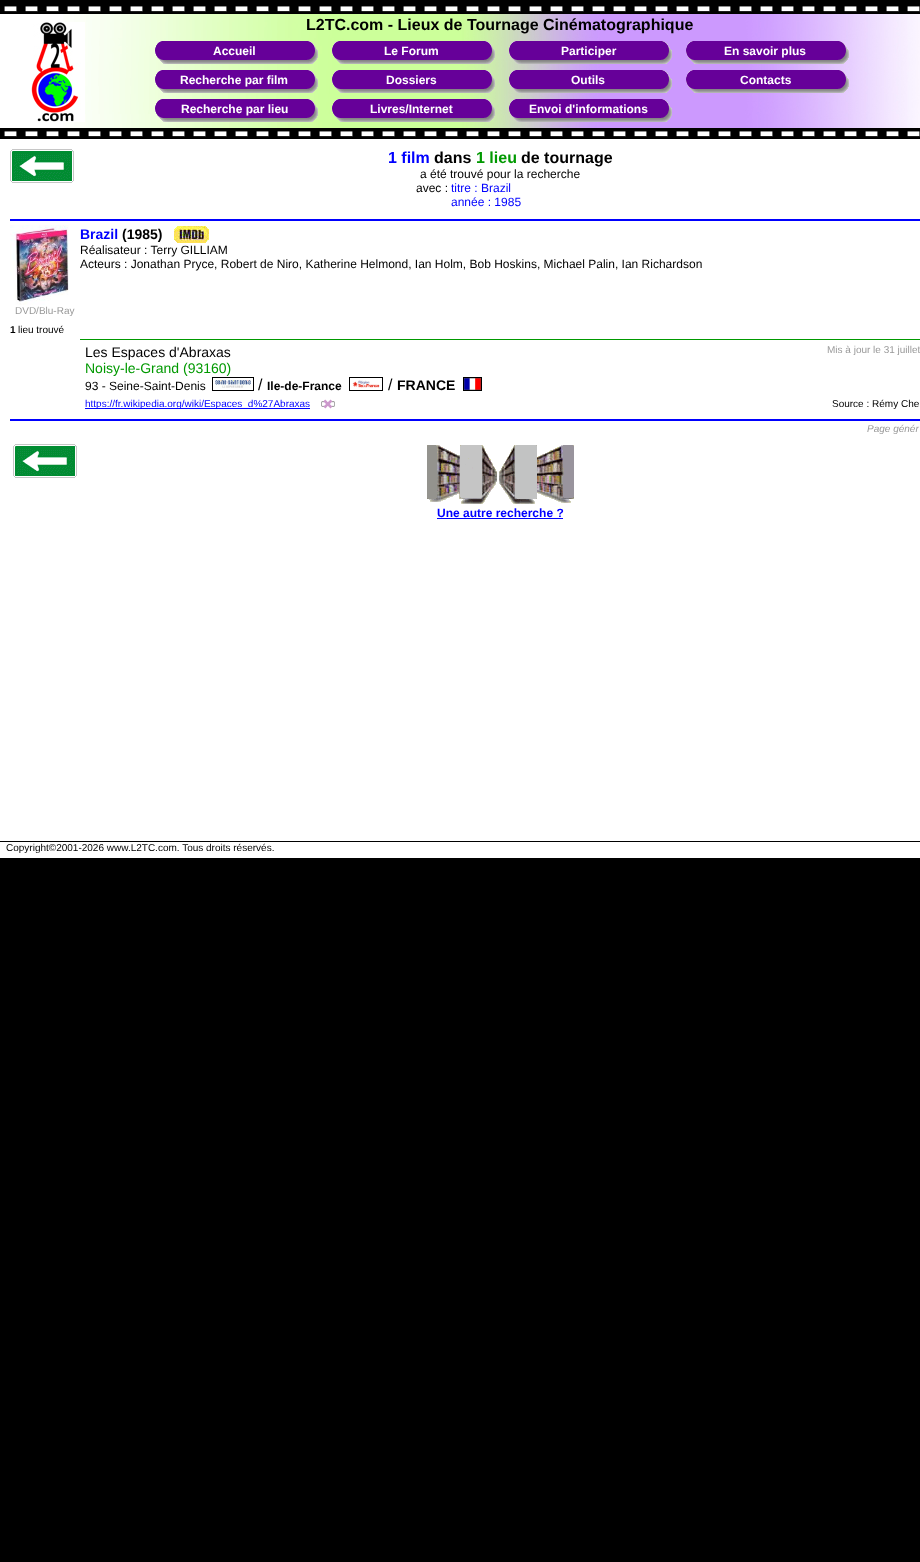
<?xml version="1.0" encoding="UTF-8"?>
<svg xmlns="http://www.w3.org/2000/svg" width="920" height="1562">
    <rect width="100%" height="100%" fill="#000000"/>
    <rect x="0" y="14" width="920" height="844" fill="#FFFFFF"/>
    <image x="0" y="3" width="920" height="11" href="img_01.png"/>
    <image x="63" y="14" width="857" height="114" href="img_02.png"/>
    <image x="31" y="22" width="54" height="100" href="img_03.png"/>
    <text x="306" y="30" font-family="Liberation Sans" font-size="16" font-weight="700" fill="#000000">L2TC.com - Lieux de Tournage Cinématographique</text>
    <image x="155" y="41" width="163" height="23" href="img_04.png"/>
    <text x="213" y="55" font-family="Liberation Sans" font-size="12" font-weight="700" fill="#FFFFFF">Accueil</text>
    <image x="332" y="41" width="163" height="23" href="img_05.png"/>
    <text x="384" y="55" font-family="Liberation Sans" font-size="12" font-weight="700" fill="#FFFFFF">Le Forum</text>
    <image x="509" y="41" width="163" height="23" href="img_06.png"/>
    <text x="561" y="55" font-family="Liberation Sans" font-size="12" font-weight="700" fill="#FFFFFF">Participer</text>
    <image x="686" y="41" width="163" height="23" href="img_07.png"/>
    <text x="724" y="55" font-family="Liberation Sans" font-size="12" font-weight="700" fill="#FFFFFF">En savoir plus</text>
    <image x="155" y="70" width="163" height="23" href="img_08.png"/>
    <text x="180" y="84" font-family="Liberation Sans" font-size="12" font-weight="700" fill="#FFFFFF">Recherche par film</text>
    <image x="332" y="70" width="163" height="23" href="img_09.png"/>
    <text x="386" y="84" font-family="Liberation Sans" font-size="12" font-weight="700" fill="#FFFFFF">Dossiers</text>
    <image x="509" y="70" width="163" height="23" href="img_10.png"/>
    <text x="571" y="84" font-family="Liberation Sans" font-size="12" font-weight="700" fill="#FFFFFF">Outils</text>
    <image x="686" y="70" width="163" height="23" href="img_11.png"/>
    <text x="740" y="84" font-family="Liberation Sans" font-size="12" font-weight="700" fill="#FFFFFF">Contacts</text>
    <image x="155" y="99" width="163" height="23" href="img_12.png"/>
    <text x="181" y="113" font-family="Liberation Sans" font-size="12" font-weight="700" fill="#FFFFFF">Recherche par lieu</text>
    <image x="332" y="99" width="163" height="23" href="img_13.png"/>
    <text x="370" y="113" font-family="Liberation Sans" font-size="12" font-weight="700" fill="#FFFFFF">Livres/Internet</text>
    <image x="509" y="99" width="163" height="23" href="img_14.png"/>
    <text x="529" y="113" font-family="Liberation Sans" font-size="12" font-weight="700" fill="#FFFFFF">Envoi d'informations</text>
    <image x="0" y="128" width="920" height="11" href="img_01.png"/>
    <image x="10" y="149" width="64" height="34" href="img_15.png"/>
    <text x="388" y="163" font-family="Liberation Sans" font-size="16" font-weight="700" fill="#0000FF">1 film</text>
    <text x="434" y="163" font-family="Liberation Sans" font-size="16" font-weight="700" fill="#000000">dans</text>
    <text x="476" y="163" font-family="Liberation Sans" font-size="16" font-weight="700" fill="#009900">1 lieu</text>
    <text x="521" y="163" font-family="Liberation Sans" font-size="16" font-weight="700" fill="#000000">de tournage</text>
    <text x="420" y="178" font-family="Liberation Sans" font-size="12" fill="#000000">a été trouvé pour la recherche</text>
    <text x="416" y="192" font-family="Liberation Sans" font-size="12" fill="#000000">avec :</text>
    <text font-family="Liberation Sans" font-size="12" fill="#0000FF">
        <tspan x="451" y="192">titre : Brazil</tspan>
        <tspan x="451" y="206">année : 1985</tspan>
    </text>
    <rect x="10" y="219" width="910" height="2" fill="#0000FF"/>
    <text x="80" y="239" font-family="Liberation Sans" font-size="14" font-weight="700" fill="#0000FF">Brazil</text>
    <text x="122" y="239" font-family="Liberation Sans" font-size="14" font-weight="700" fill="#000000">(1985)</text>
    <image x="174" y="226" width="35" height="17" href="img_16.png"/>
    <text font-family="Liberation Sans" font-size="12" fill="#000000">
        <tspan x="80" y="254">Réalisateur : Terry GILLIAM</tspan>
        <tspan x="80" y="268">Acteurs : Jonathan Pryce, Robert de Niro, Katherine Helmond, Ian Holm, Bob Hoskins, Michael Palin, Ian Richardson</tspan>
    </text>
    <image x="10" y="225" width="59" height="80" href="img_17.png"/>
    <text x="15" y="314" font-family="Liberation Sans" font-size="10" fill="#999999">DVD/Blu-Ray</text>
    <text x="10" y="333" font-family="Liberation Sans" font-size="10" font-weight="700" fill="#000000">1</text>
    <text x="18" y="333" font-family="Liberation Sans" font-size="10" fill="#000000">lieu trouvé</text>
    <rect x="80" y="339" width="840" height="1" fill="#009900"/>
    <text x="85" y="357" font-family="Liberation Sans" font-size="14" fill="#000000">Les Espaces d'Abraxas</text>
    <text x="85" y="373" font-family="Liberation Sans" font-size="14" fill="#009900">Noisy-le-Grand (93160)</text>
    <text x="85" y="390" font-family="Liberation Sans" font-size="12" fill="#000000">93 - Seine-Saint-Denis</text>
    <rect x="212.5" y="377.5" width="41" height="13" fill="none" stroke="#000000"/>
    <image x="215" y="380" width="36" height="8" href="img_18.png"/>
    <text x="258" y="390" font-family="Liberation Sans" font-size="16" fill="#000000">/</text>
    <text x="267" y="390" font-family="Liberation Sans" font-size="12" font-weight="700" fill="#000000">Ile-de-France</text>
    <rect x="349.5" y="377.5" width="33" height="13" fill="none" stroke="#000000"/>
    <image x="352" y="380" width="28" height="8" href="img_19.png"/>
    <text x="388" y="390" font-family="Liberation Sans" font-size="16" fill="#000000">/</text>
    <text x="397" y="390" font-family="Liberation Sans" font-size="14" font-weight="700" fill="#000000">FRANCE</text>
    <rect x="463.5" y="377.5" width="18" height="13" fill="none" stroke="#000000"/>
    <image x="464" y="378" width="17" height="12" href="img_20.png"/>
    <rect x="85" y="408" width="225" height="1" fill="#0000FF"/>
    <text x="85" y="407" font-family="Liberation Sans" font-size="10" fill="#0000FF">https://fr.wikipedia.org/wiki/Espaces_d%27Abraxas</text>
    <image x="321" y="399" width="14" height="10" href="img_21.png"/>
    <text x="827" y="353" font-family="Liberation Sans" font-size="10" fill="#999999">Mis à jour le 31 juillet</text>
    <text x="832" y="407" font-family="Liberation Sans" font-size="10" fill="#000000">Source : Rémy Che</text>
    <rect x="10" y="419" width="910" height="2" fill="#0000FF"/>
    <text x="867" y="432" font-family="Liberation Sans" font-size="10" font-style="italic" fill="#999999">Page génér</text>
    <image x="13" y="444" width="64" height="34" href="img_15.png"/>
    <image x="427" y="445" width="147" height="59" href="img_22.png"/>
    <text x="437" y="517" font-family="Liberation Sans" font-size="12" font-weight="700" fill="#0000FF">Une autre recherche ?</text>
    <rect x="437" y="518" width="126" height="1" fill="#0000FF"/>
    <rect x="0" y="841" width="920" height="1" fill="#000000"/>
    <text x="6" y="851" font-family="Liberation Sans" font-size="10" fill="#000000">Copyright©2001-2026 www.L2TC.com. Tous droits réservés.</text>
</svg>
